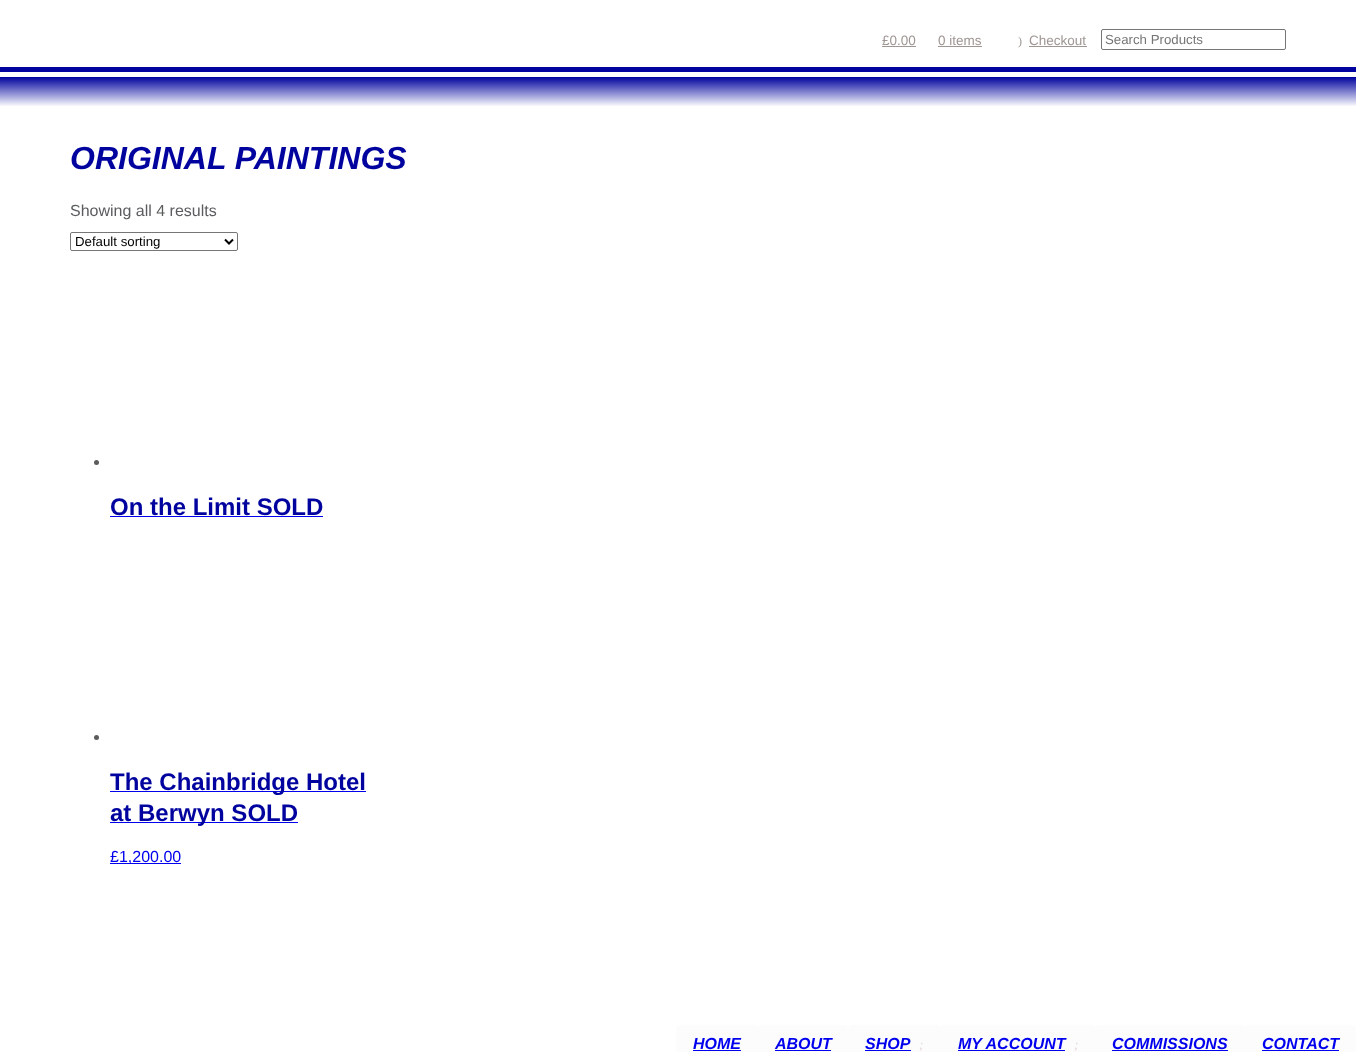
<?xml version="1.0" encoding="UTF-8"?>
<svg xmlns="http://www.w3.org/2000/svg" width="1356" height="1052">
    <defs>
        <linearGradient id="g1" gradientUnits="userSpaceOnUse" x1="678" y1="107" x2="678" y2="77"><stop offset="0.01" stop-color="#FFFFFF"/><stop offset="1" stop-color="#00039E"/></linearGradient>
    </defs>
    <rect width="100%" height="100%" fill="#FFFFFF"/>
    <text x="882" y="45" font-family="Liberation Sans" font-size="13.5" fill="#9F9693">£0.00</text>
    <rect x="882" y="46" width="34" height="1" fill="#9F9693"/>
    <text x="938" y="45" font-family="Liberation Sans" font-size="13.5" fill="#9F9693">0 items</text>
    <rect x="938" y="46" width="44" height="1" fill="#9F9693"/>
    <text x="1018" y="45" font-family="Liberation Serif" font-size="12" fill="#9F9693">)</text>
    <text x="1029" y="45" font-family="Liberation Sans" font-size="13.5" fill="#9F9693">Checkout</text>
    <rect x="1029" y="46" width="58" height="1" fill="#9F9693"/>
    <rect x="1101.5" y="29.5" width="184" height="20" rx="1.5" fill="none" stroke="#767676"/>
    <text x="1105" y="44" font-family="Liberation Sans" font-size="13.25" fill="#757575">Search Products</text>
    <rect x="677" y="1026" width="80" height="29" rx="3" fill="#FCFCFC"/>
    <rect x="676.5" y="1025.5" width="81" height="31" rx="3.5" fill="none" stroke="#FCFCFC"/>
    <text x="693" y="1049" font-family="Liberation Sans" font-size="16" font-weight="700" font-style="italic" fill="#0000EE">HOME</text>
    <rect x="693" y="1050" width="48" height="1" fill="#0000EE"/>
    <rect x="759" y="1026" width="88" height="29" rx="3" fill="#FCFCFC"/>
    <rect x="758.5" y="1025.5" width="89" height="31" rx="3.5" fill="none" stroke="#FCFCFC"/>
    <text x="775" y="1049" font-family="Liberation Sans" font-size="16" font-weight="700" font-style="italic" fill="#0000EE">ABOUT</text>
    <rect x="775" y="1050" width="56" height="1" fill="#0000EE"/>
    <path d="M 852 1026 H 937 C 938.5 1026 940 1027.5 940 1029 V 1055 H 849 V 1029 C 849 1027.5 850.5 1026 852 1026 Z" fill="#FCFCFC"/>
    <path d="M 852 1025.5 H 937 C 939 1025.5 940.5 1027 940.5 1029 V 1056.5 H 848.5 V 1029 C 848.5 1027 850 1025.5 852 1025.5 Z" fill="none" stroke="#FCFCFC"/>
    <text x="865" y="1049" font-family="Liberation Sans" font-size="16" font-weight="700" font-style="italic" fill="#0000EE">SHOP</text>
    <rect x="865" y="1050" width="46" height="1" fill="#0000EE"/>
    <text x="919" y="1049" font-family="Liberation Serif" font-size="13.5" font-style="italic" fill="#E3DAD7">;</text>
    <path d="M 945 1026 H 1091 C 1092.5 1026 1094 1027.5 1094 1029 V 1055 H 942 V 1029 C 942 1027.5 943.5 1026 945 1026 Z" fill="#FCFCFC"/>
    <path d="M 945 1025.5 H 1091 C 1093 1025.5 1094.5 1027 1094.5 1029 V 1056.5 H 941.5 V 1029 C 941.5 1027 943 1025.5 945 1025.5 Z" fill="none" stroke="#FCFCFC"/>
    <text x="958" y="1049" font-family="Liberation Sans" font-size="16" font-weight="700" font-style="italic" fill="#0000EE">MY ACCOUNT</text>
    <rect x="958" y="1050" width="107" height="1" fill="#0000EE"/>
    <text x="1074" y="1049" font-family="Liberation Serif" font-size="13.5" font-style="italic" fill="#E3DAD7">;</text>
    <rect x="1096" y="1026" width="148" height="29" rx="3" fill="#FCFCFC"/>
    <rect x="1095.5" y="1025.5" width="149" height="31" rx="3.5" fill="none" stroke="#FCFCFC"/>
    <text x="1112" y="1049" font-family="Liberation Sans" font-size="16" font-weight="700" font-style="italic" fill="#0000EE">COMMISSIONS</text>
    <rect x="1112" y="1050" width="116" height="1" fill="#0000EE"/>
    <rect x="1246" y="1026" width="109" height="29" rx="3" fill="#FCFCFC"/>
    <rect x="1245.5" y="1025.5" width="110" height="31" rx="3.5" fill="none" stroke="#FCFCFC"/>
    <text x="1262" y="1049" font-family="Liberation Sans" font-size="16" font-weight="700" font-style="italic" fill="#0000EE">CONTACT</text>
    <rect x="1262" y="1050" width="77" height="1" fill="#0000EE"/>
    <rect x="0" y="67" width="1356" height="5" fill="#00039E"/>
    <rect x="0" y="77" width="1356" height="29" fill="url(#g1)"/>
    <text x="70" y="169" font-family="Liberation Sans" font-size="32" font-weight="700" font-style="italic" fill="#00039E">ORIGINAL PAINTINGS</text>
    <text x="70" y="216" font-family="Liberation Sans" font-size="16" fill="#5A5C5E">Showing all 4 results</text>
    <rect x="70.5" y="232.5" width="167" height="18" rx="1.5" fill="none" stroke="#767676"/>
    <path d="M 225 239.5 L 229 243.5 L 233 239.5" fill="none" stroke="#000000" stroke-width="2"/>
    <text x="75" y="246" font-family="Liberation Sans" font-size="13.25" fill="#000000">Default sorting</text>
    <circle cx="96.5" cy="462.5" r="2.5" fill="#5A5C5E"/>
    <text x="110" y="515" font-family="Liberation Sans" font-size="24" font-weight="700" fill="#00039E">On the Limit SOLD</text>
    <rect x="110" y="516" width="213" height="1" fill="#0000EE"/>
    <circle cx="96.5" cy="737.5" r="2.5" fill="#5A5C5E"/>
    <rect x="110" y="791" width="256" height="1" fill="#0000EE"/>
    <text x="110" y="790" font-family="Liberation Sans" font-size="24" font-weight="700" fill="#00039E">The Chainbridge Hotel</text>
    <rect x="110" y="822" width="188" height="1" fill="#0000EE"/>
    <text x="110" y="821" font-family="Liberation Sans" font-size="24" font-weight="700" fill="#00039E">at Berwyn SOLD</text>
    <rect x="110" y="863" width="71" height="1" fill="#0000EE"/>
    <text x="110" y="862" font-family="Liberation Sans" font-size="16" fill="#0000EE">£1,200.00</text>
</svg>
